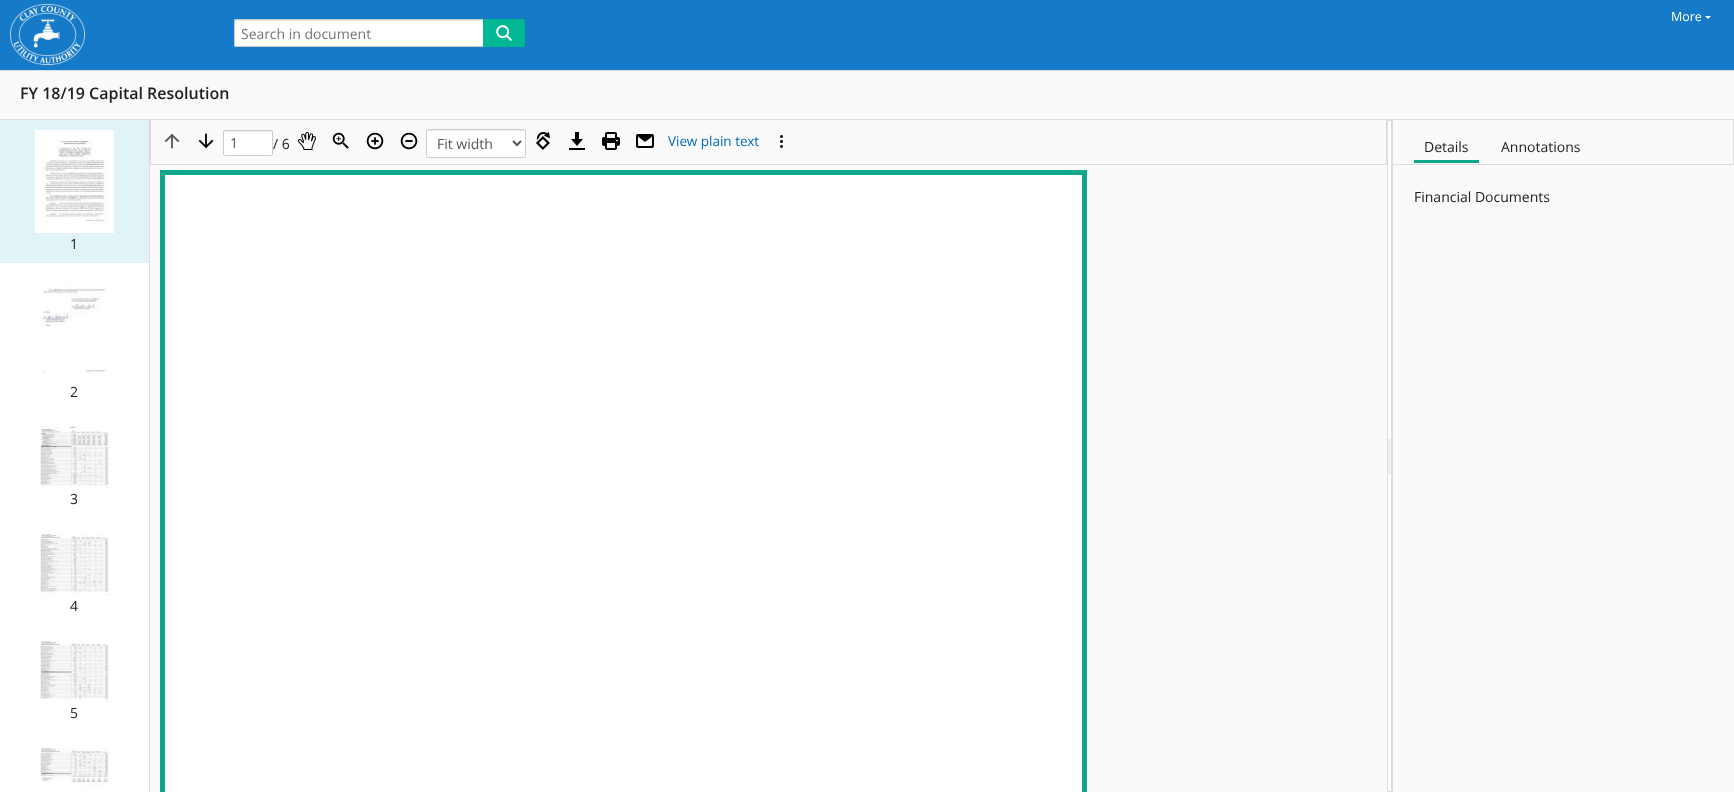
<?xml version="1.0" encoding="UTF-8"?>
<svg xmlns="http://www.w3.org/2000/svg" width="1734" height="792">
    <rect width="100%" height="100%" fill="#FFFFFF"/>
    <rect x="0" y="0" width="1734" height="70" fill="#157AC7"/>
    <rect x="0" y="70" width="1734" height="1" fill="#DDDDDD"/>
    <image x="10" y="4" width="75" height="61" href="img_01.png"/>
    <text x="1671" y="21" font-family="Open Sans" font-size="12.5" fill="#FFFFFF">More</text>
    <path d="M 1705 16 H 1711 L 1708 19 Z" fill="#FFFFFF"/>
    <rect x="234" y="19" width="250" height="28" rx="2" fill="#FFFFFF"/>
    <path d="M 236 21 H 482 L 483 23 V 21 C 483 20 483 20 482 20 H 236 C 235 20 235 20 235 21 V 22 Z" fill="#ECECEC"/>
    <rect x="234.5" y="19.5" width="249" height="27" rx="1.5" fill="none" stroke="#CCCCCC"/>
    <text x="241" y="39" font-family="Open Sans" font-size="14" fill="#757575">Search in document</text>
    <path d="M 483 19 H 523 C 524 19 525 20 525 21 V 45 C 525 46 524 47 523 47 H 483 Z" fill="#02B793"/>
    <image x="496" y="25" width="16" height="16" href="img_02.png"/>
    <rect x="0" y="71" width="1734" height="48" fill="#FAFAFA"/>
    <rect x="0" y="119" width="1734" height="1" fill="#DDDDDD"/>
    <text x="20" y="99" font-family="Open Sans" font-size="16" font-weight="600" fill="#202020">FY 18/19 Capital Resolution</text>
    <rect x="150" y="120" width="1237" height="672" fill="#FAFAFA"/>
    <rect x="1386" y="120" width="1" height="45" fill="#DDDDDD"/>
    <rect x="150" y="164" width="1237" height="1" fill="#DDDDDD"/>
    <rect x="150" y="120" width="1" height="45" fill="#DDDDDD"/>
    <image x="164" y="133" width="16" height="16" href="img_03.png"/>
    <image x="198" y="133" width="16" height="16" href="img_04.png"/>
    <rect x="223" y="130" width="50" height="26" rx="2" fill="#FFFFFF"/>
    <path d="M 225 132 H 271 L 272 133 C 272 129 269 131 263 131 H 233 C 226 131 224 129 224 134 Z" fill="#ECECEC"/>
    <rect x="223.5" y="130.5" width="49" height="25" rx="1.5" fill="none" stroke="#CCCCCC"/>
    <text x="230" y="148" font-family="Open Sans" font-size="14" fill="#555555">1</text>
    <text x="273" y="149" font-family="Open Sans" font-size="14" fill="#202020">/ 6</text>
    <image x="298" y="132" width="18" height="18" href="img_05.png"/>
    <image x="332" y="132" width="17" height="17" href="img_06.png"/>
    <image x="366" y="132" width="18" height="18" href="img_07.png"/>
    <image x="400" y="132" width="18" height="18" href="img_08.png"/>
    <rect x="426" y="129" width="100" height="29" rx="2" fill="#FFFFFF"/>
    <path d="M 428 131 H 524 C 525 131 525 131 525 132 C 525 131 525 130 524 130 H 428 C 427 130 427 131 427 132 C 427 131 427 131 428 131 Z" fill="#ECECEC"/>
    <rect x="426.5" y="129.5" width="99" height="28" rx="1.5" fill="none" stroke="#CCCCCC"/>
    <path d="M 513 141 L 517 145 L 521 141" fill="none" stroke="#555555" stroke-width="2"/>
    <text x="437" y="149" font-family="Open Sans" font-size="14" fill="#555555">Fit width</text>
    <image x="536" y="132" width="14" height="18" href="img_09.png"/>
    <image x="569" y="132" width="16" height="18" href="img_10.png"/>
    <image x="602" y="132" width="18" height="18" href="img_11.png"/>
    <image x="636" y="134" width="18" height="14" href="img_12.png"/>
    <text x="668" y="146" font-family="Open Sans" font-size="13.5" fill="#0069BA">View plain text</text>
    <image x="780" y="135" width="3" height="13" href="img_13.png"/>
    <rect x="162.5" y="172.5" width="922" height="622" fill="#FFFFFF" stroke="#0DA88B" stroke-width="5"/>
    <rect x="149" y="120" width="1" height="672" fill="#DDDDDD"/>
    <rect x="0" y="120" width="149" height="143" fill="#E2F3F7"/>
    <image x="35" y="130" width="79" height="103" href="img_14.png"/>
    <text x="70" y="249" font-family="Open Sans" font-size="14" fill="#202020">1</text>
    <image x="42" y="285" width="66" height="88" href="img_15.png"/>
    <text x="70" y="397" font-family="Open Sans" font-size="14" fill="#202020">2</text>
    <image x="40" y="426" width="69" height="62" href="img_16.png"/>
    <text x="70" y="504" font-family="Open Sans" font-size="14" fill="#202020">3</text>
    <image x="40" y="533" width="69" height="62" href="img_17.png"/>
    <text x="70" y="611" font-family="Open Sans" font-size="14" fill="#202020">4</text>
    <image x="40" y="640" width="69" height="62" href="img_18.png"/>
    <text x="70" y="718" font-family="Open Sans" font-size="14" fill="#202020">5</text>
    <image x="40" y="747" width="69" height="40" href="img_19.png"/>
    <rect x="1387.5" y="120.5" width="4" height="671" fill="none" stroke="#DDDDDD"/>
    <rect x="1388" y="439" width="3" height="35" fill="#EEEEEE"/>
    <rect x="1392" y="120" width="1" height="672" fill="#DDDDDD"/>
    <rect x="1393" y="120" width="341" height="672" fill="#FAFAFA"/>
    <rect x="1733" y="120" width="1" height="44" fill="#DDDDDD"/>
    <text x="1424" y="152" font-family="Open Sans" font-size="14" fill="#202020">Details</text>
    <rect x="1414" y="160" width="65" height="3" fill="#0DA88B"/>
    <text x="1501" y="152" font-family="Open Sans" font-size="14" fill="#202020">Annotations</text>
    <rect x="1393" y="164" width="341" height="1" fill="#DDDDDD"/>
    <text x="1414" y="202" font-family="Open Sans" font-size="14" fill="#202020">Financial Documents</text>
</svg>
